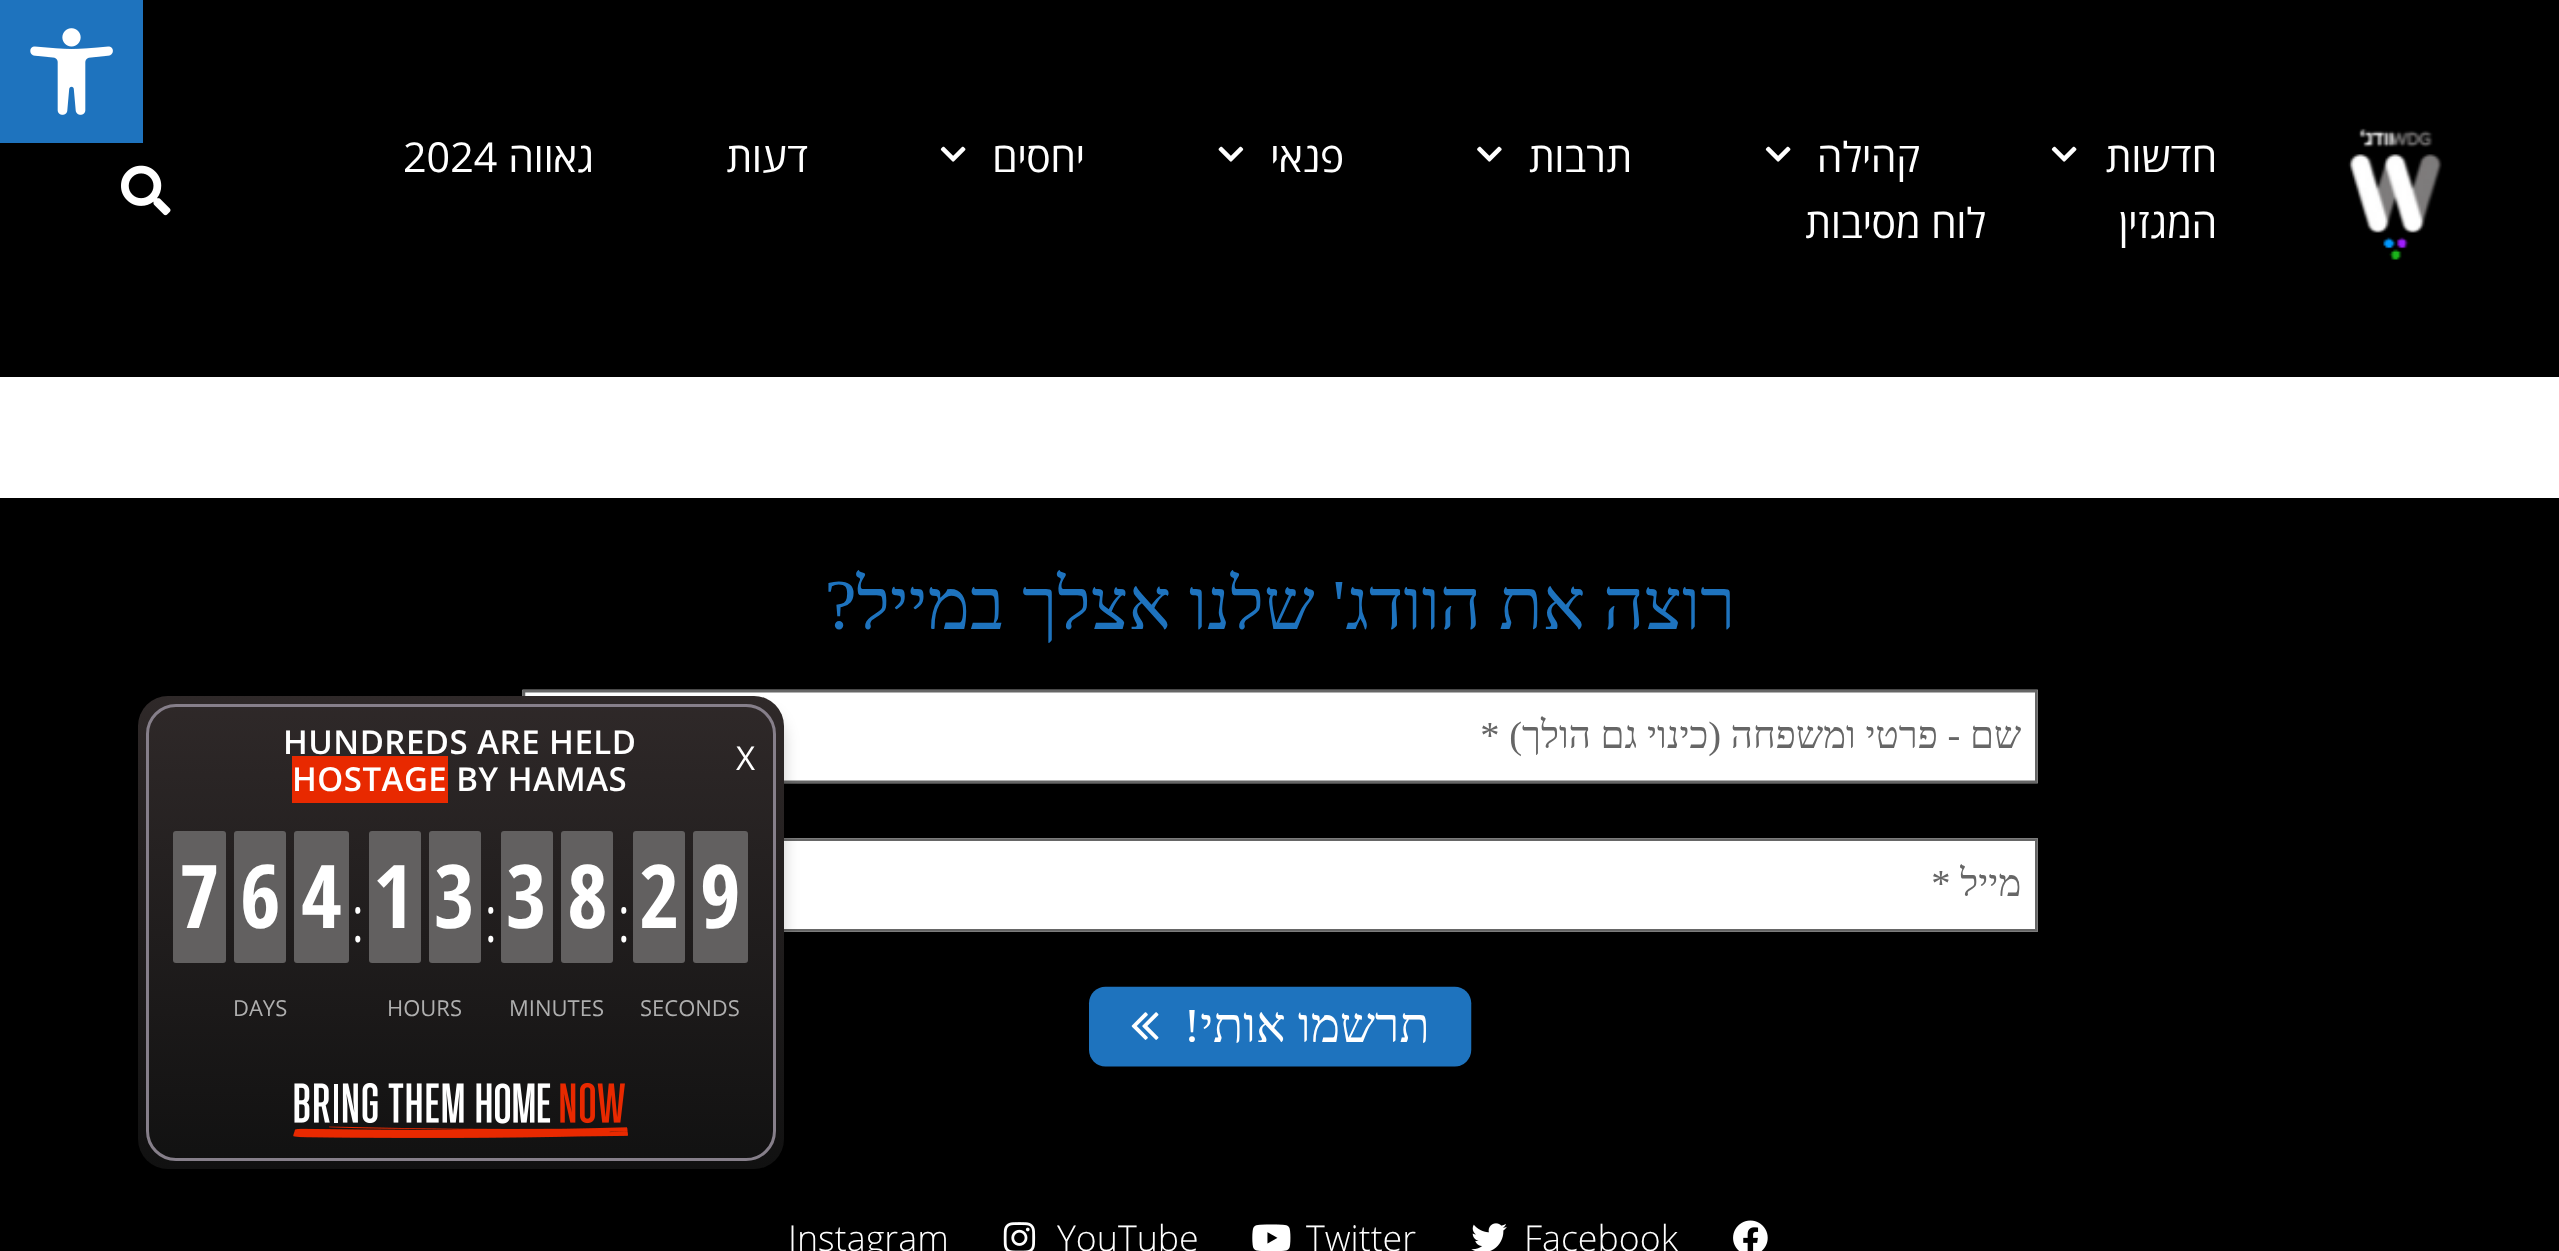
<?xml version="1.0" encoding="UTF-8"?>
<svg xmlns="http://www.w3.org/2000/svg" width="2559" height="1251">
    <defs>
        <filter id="blur1" x="-50%" y="-200%" width="200%" height="500%"><feGaussianBlur stdDeviation="7.5"/></filter>
        <linearGradient id="g1" gradientUnits="userSpaceOnUse" x1="461" y1="696" x2="461" y2="1169"><stop offset="0" stop-color="#2F2929"/><stop offset="1" stop-color="#111111"/></linearGradient>
    </defs>
    <rect width="100%" height="100%" fill="#FFFFFF"/>
    <rect x="0" y="0" width="2559" height="377" fill="#000000"/>
    <rect x="0" y="0" width="143" height="143" fill="#1E73BE"/>
    <image x="30" y="28" width="83" height="87" href="img_01.png"/>
    <image x="121" y="165" width="50" height="51" href="img_02.png"/>
    <text x="403" y="172" font-family="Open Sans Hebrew" font-size="41.25" fill="#FFFFFF">2024</text>
    <text x="594" y="172" font-family="Open Sans Hebrew" font-size="41.25" direction="rtl" fill="#FFFFFF">גאווה</text>
    <text x="808" y="172" font-family="Open Sans Hebrew" font-size="41.25" direction="rtl" fill="#FFFFFF">דעות</text>
    <image x="940" y="146" width="26" height="16" href="img_03.png"/>
    <text x="1085" y="172" font-family="Open Sans Hebrew" font-size="41.25" direction="rtl" fill="#FFFFFF">יחסים</text>
    <image x="1218" y="146" width="26" height="16" href="img_04.png"/>
    <text x="1344" y="172" font-family="Open Sans Hebrew" font-size="41.25" direction="rtl" fill="#FFFFFF">פנאי</text>
    <image x="1477" y="146" width="25" height="16" href="img_05.png"/>
    <text x="1632" y="172" font-family="Open Sans Hebrew" font-size="41.25" direction="rtl" fill="#FFFFFF">תרבות</text>
    <image x="1765" y="146" width="26" height="16" href="img_03.png"/>
    <text x="1920" y="172" font-family="Open Sans Hebrew" font-size="41.25" direction="rtl" fill="#FFFFFF">קהילה</text>
    <image x="2051" y="146" width="26" height="16" href="img_03.png"/>
    <text x="2217" y="172" font-family="Open Sans Hebrew" font-size="41.25" direction="rtl" fill="#FFFFFF">חדשות</text>
    <text x="1986" y="238" font-family="Open Sans Hebrew" font-size="41.25" direction="rtl" fill="#FFFFFF">לוח מסיבות</text>
    <text x="2217" y="238" font-family="Open Sans Hebrew" font-size="41.25" direction="rtl" fill="#FFFFFF">המגזין</text>
    <image x="2348" y="128" width="94" height="132" href="img_06.png"/>
    <rect x="0" y="498" width="2559" height="753" fill="#000000"/>
    <image x="522" y="570" width="1516" height="497" href="img_07.png"/>
    <rect x="138" y="710" width="646" height="473" rx="30" fill="#000000" fill-opacity="0.2" filter="url(#blur1)"/>
    <rect x="138" y="696" width="646" height="473" rx="30" fill="url(#g1)"/>
    <rect x="147.5" y="705.5" width="627" height="454" rx="28.5" fill="none" stroke="#867F8A" stroke-width="3"/>
    <text x="283" y="754" font-family="Open Sans" font-size="33" font-weight="600" letter-spacing="0.5" fill="#FFFFFF">HUNDREDS ARE HELD</text>
    <rect x="292" y="756" width="156" height="47" fill="#E82900"/>
    <text x="292" y="791" font-family="Open Sans" font-size="33" font-weight="600" letter-spacing="0.5" fill="#FFFFFF">HOSTAGE BY HAMAS</text>
    <text x="736" y="770" font-family="Open Sans" font-size="33" fill="#FFFFFF">X</text>
    <rect x="173" y="831" width="53" height="132" rx="3" fill="#626060"/>
    <text x="179" y="928" font-family="Open Sans Condensed" font-size="88" font-weight="700" fill="#FFFFFF">7</text>
    <rect x="234" y="831" width="52" height="132" rx="3" fill="#626060"/>
    <text x="240" y="928" font-family="Open Sans Condensed" font-size="88" font-weight="700" fill="#FFFFFF">6</text>
    <rect x="294" y="831" width="55" height="132" rx="3" fill="#626060"/>
    <text x="301" y="928" font-family="Open Sans Condensed" font-size="88" font-weight="700" fill="#FFFFFF">4</text>
    <text x="233" y="1016" font-family="Open Sans" font-size="22" fill="#AFAFAF">DAYS</text>
    <text x="351" y="942" font-family="Open Sans Condensed" font-size="66" font-weight="300" fill="#FFFFFF">:</text>
    <rect x="369" y="831" width="52" height="132" rx="3" fill="#626060"/>
    <text x="373" y="928" font-family="Open Sans Condensed" font-size="88" font-weight="700" fill="#FFFFFF">1</text>
    <rect x="429" y="831" width="52" height="132" rx="3" fill="#626060"/>
    <text x="434" y="928" font-family="Open Sans Condensed" font-size="88" font-weight="700" fill="#FFFFFF">3</text>
    <text x="387" y="1016" font-family="Open Sans" font-size="22" fill="#AFAFAF">HOURS</text>
    <text x="484" y="942" font-family="Open Sans Condensed" font-size="66" font-weight="300" fill="#FFFFFF">:</text>
    <rect x="501" y="831" width="52" height="132" rx="3" fill="#626060"/>
    <text x="506" y="928" font-family="Open Sans Condensed" font-size="88" font-weight="700" fill="#FFFFFF">3</text>
    <rect x="561" y="831" width="52" height="132" rx="3" fill="#626060"/>
    <text x="567" y="928" font-family="Open Sans Condensed" font-size="88" font-weight="700" fill="#FFFFFF">8</text>
    <text x="509" y="1016" font-family="Open Sans" font-size="22" fill="#AFAFAF">MINUTES</text>
    <text x="617" y="942" font-family="Open Sans Condensed" font-size="66" font-weight="300" fill="#FFFFFF">:</text>
    <rect x="633" y="831" width="52" height="132" rx="3" fill="#626060"/>
    <text x="639" y="928" font-family="Open Sans Condensed" font-size="88" font-weight="700" fill="#FFFFFF">2</text>
    <rect x="693" y="831" width="55" height="132" rx="3" fill="#626060"/>
    <text x="700" y="928" font-family="Open Sans Condensed" font-size="88" font-weight="700" fill="#FFFFFF">9</text>
    <text x="640" y="1016" font-family="Open Sans" font-size="22" fill="#AFAFAF">SECONDS</text>
    <image x="293" y="1082" width="335" height="56" href="img_08.png"/>
    <text x="788" y="1251" font-family="Open Sans Hebrew" font-size="35.75" font-weight="300" fill="#FFFFFF">Instagram</text>
    <image x="1003" y="1222" width="33" height="29" href="img_09.png"/>
    <text x="1057" y="1251" font-family="Open Sans Hebrew" font-size="35.75" font-weight="300" fill="#FFFFFF">YouTube</text>
    <image x="1252" y="1224" width="39" height="27" href="img_10.png"/>
    <text x="1306" y="1251" font-family="Open Sans Hebrew" font-size="35.75" font-weight="300" fill="#FFFFFF">Twitter</text>
    <image x="1471" y="1223" width="36" height="28" href="img_11.png"/>
    <text x="1524" y="1251" font-family="Open Sans Hebrew" font-size="35.75" font-weight="300" fill="#FFFFFF">Facebook</text>
    <image x="1733" y="1220" width="35" height="31" href="img_12.png"/>
</svg>
